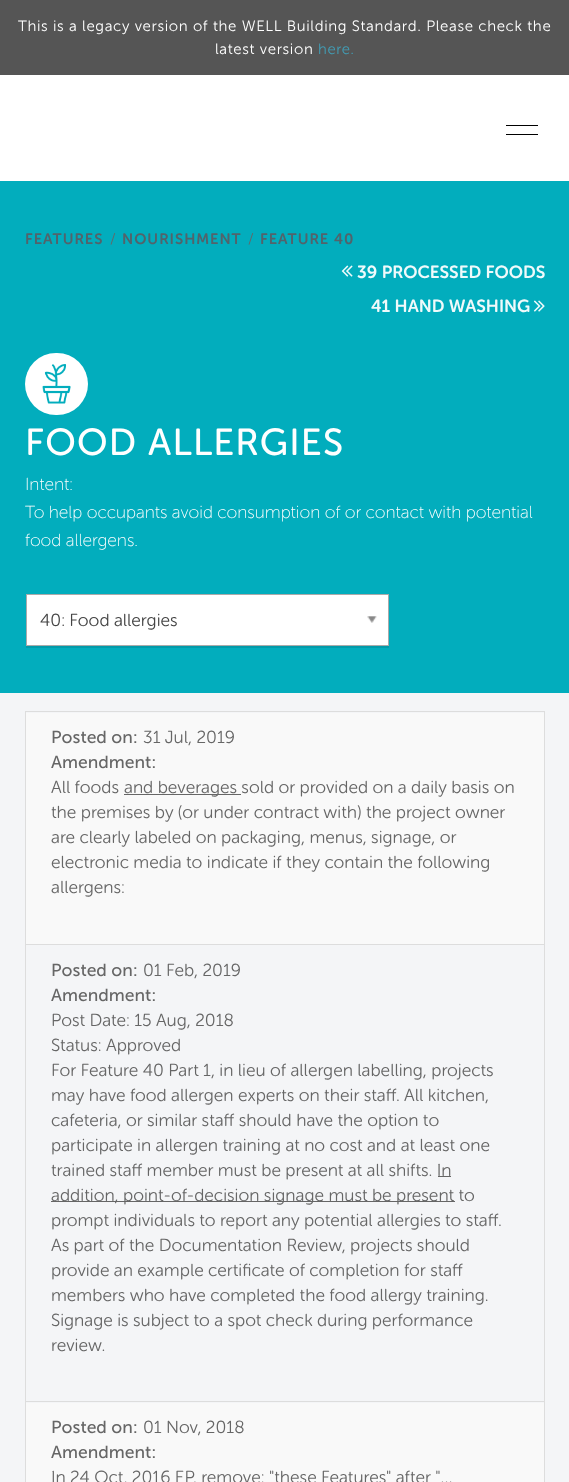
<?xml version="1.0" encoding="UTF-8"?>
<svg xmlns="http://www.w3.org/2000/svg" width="569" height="1482">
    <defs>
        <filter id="blur1" x="-50%" y="-200%" width="200%" height="500%"><feGaussianBlur stdDeviation="0.5"/></filter>
    </defs>
    <rect width="100%" height="100%" fill="#555555"/>
    <text x="18" y="31" font-family="'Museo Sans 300'" font-size="15" font-weight="300" letter-spacing="0.62" fill="#FFFFFF">This is a legacy version of the WELL Building Standard. Please check the</text>
    <text x="215" y="54" font-family="'Museo Sans 300'" font-size="15" font-weight="300" letter-spacing="0.62" fill="#FFFFFF">latest version</text>
    <text x="318" y="54" font-family="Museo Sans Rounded" font-size="15" font-weight="300" letter-spacing="0.62" fill="#429DB5">here.</text>
    <rect x="0" y="75" width="569" height="106" fill="#FFFFFF"/>
    <rect x="506" y="125" width="32" height="1" fill="#000000"/>
    <rect x="506" y="134" width="32" height="1" fill="#000000"/>
    <rect x="0" y="693" width="569" height="789" fill="#F4F5F7"/>
    <rect x="0" y="181" width="569" height="512" fill="#02ADBD"/>
    <text x="25" y="244" font-family="Museo Sans Rounded" font-size="15" font-weight="600" letter-spacing="1" fill="#52636B">FEATURES</text>
    <text x="110" y="244" font-family="Museo Sans Rounded" font-size="15" font-weight="300" fill="#666666">/</text>
    <text x="122" y="244" font-family="Museo Sans Rounded" font-size="15" font-weight="600" letter-spacing="1" fill="#52636B">NOURISHMENT</text>
    <text x="248" y="244" font-family="Museo Sans Rounded" font-size="15" font-weight="300" fill="#666666">/</text>
    <text x="260" y="244" font-family="Museo Sans Rounded" font-size="15" font-weight="600" letter-spacing="1" fill="#52636B">FEATURE 40</text>
    <image x="341" y="265" width="12" height="12" href="img_01.png"/>
    <text x="357" y="278" font-family="Museo Sans Rounded" font-size="17.5" font-weight="600" fill="#F0FAFB">39 PROCESSED FOODS</text>
    <text x="371" y="312" font-family="Museo Sans Rounded" font-size="17.5" font-weight="600" fill="#F0FAFB">41 HAND WASHING</text>
    <image x="533" y="300" width="12" height="12" href="img_02.png"/>
    <rect x="25" y="353" width="63" height="62" rx="31" fill="#FFFFFF"/>
    <image x="42" y="364" width="29" height="40" href="img_03.png"/>
    <text x="25" y="455" font-family="Museo Sans Rounded" font-size="37.5" letter-spacing="1.25" fill="#FFFFFF">FOOD ALLERGIES</text>
    <text font-family="'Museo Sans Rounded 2'" font-size="17.5" font-weight="300" fill="#FFFFFF">
        <tspan x="25" y="490">Intent:</tspan>
        <tspan x="25" y="518">To help occupants avoid consumption of or contact with potential</tspan>
        <tspan x="25" y="546">food allergens.</tspan>
    </text>
    <rect x="26" y="595" width="363" height="53" fill="#000000" fill-opacity="0.1" filter="url(#blur1)"/>
    <rect x="26.5" y="594.5" width="362" height="51" fill="#FFFFFF" stroke="#AAAAAA"/>
    <text x="40" y="626" font-family="Museo Sans Rounded" font-size="17.5" font-weight="300" fill="#444444">40: Food allergies</text>
    <image x="367" y="616" width="10" height="7" href="img_04.png"/>
    <rect x="26" y="713" width="518" height="231" fill="#F9F9F9"/>
    <rect x="25" y="711" width="520" height="1" fill="#DDDDDD"/>
    <rect x="25" y="944" width="520" height="1" fill="#DDDDDD"/>
    <rect x="25" y="1401" width="520" height="1" fill="#DDDDDD"/>
    <rect x="544" y="1401" width="1" height="81" fill="#DDDDDD"/>
    <rect x="544" y="944" width="1" height="459" fill="#DDDDDD"/>
    <rect x="544" y="711" width="1" height="234" fill="#DDDDDD"/>
    <rect x="25" y="1401" width="1" height="81" fill="#DDDDDD"/>
    <rect x="25" y="944" width="1" height="459" fill="#DDDDDD"/>
    <rect x="25" y="711" width="1" height="234" fill="#DDDDDD"/>
    <text x="51" y="743" font-family="'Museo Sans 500'" font-size="17.5" fill="#666666">Posted on:</text>
    <text x="143" y="743" font-family="Museo Sans Rounded" font-size="17.5" font-weight="300" fill="#666666">31 Jul, 2019</text>
    <text x="51" y="768" font-family="'Museo Sans 500'" font-size="17.5" fill="#666666">Amendment:</text>
    <text x="51" y="793" font-family="Museo Sans Rounded" font-size="17.5" font-weight="300" fill="#666666">All foods</text>
    <rect x="124" y="794" width="117" height="1" fill="#666666"/>
    <text x="124" y="793" font-family="Museo Sans Rounded" font-size="17.5" font-weight="300" fill="#666666">and beverages sold or provided on a daily basis on</text>
    <text font-family="Museo Sans Rounded" font-size="17.5" font-weight="300" fill="#666666">
        <tspan x="51" y="818">the premises by (or under contract with) the project owner</tspan>
        <tspan x="51" y="843">are clearly labeled on packaging, menus, signage, or</tspan>
        <tspan x="51" y="868">electronic media to indicate if they contain the following</tspan>
        <tspan x="51" y="893">allergens:</tspan>
    </text>
    <text x="51" y="976" font-family="'Museo Sans 500'" font-size="17.5" fill="#666666">Posted on:</text>
    <text x="143" y="976" font-family="Museo Sans Rounded" font-size="17.5" font-weight="300" fill="#666666">01 Feb, 2019</text>
    <text x="51" y="1001" font-family="'Museo Sans 500'" font-size="17.5" fill="#666666">Amendment:</text>
    <text font-family="Museo Sans Rounded" font-size="17.5" font-weight="300" fill="#666666">
        <tspan x="51" y="1026">Post Date: 15 Aug, 2018</tspan>
        <tspan x="51" y="1051">Status: Approved</tspan>
        <tspan x="51" y="1076">For Feature 40 Part 1, in lieu of allergen labelling, projects</tspan>
        <tspan x="51" y="1101">may have food allergen experts on their staff. All kitchen,</tspan>
        <tspan x="51" y="1126">cafeteria, or similar staff should have the option to</tspan>
        <tspan x="51" y="1151">participate in allergen training at no cost and at least one</tspan>
        <tspan x="51" y="1176">trained staff member must be present at all shifts. In</tspan>
    </text>
    <rect x="51" y="1201" width="404" height="1" fill="#666666"/>
    <text x="51" y="1201" font-family="Museo Sans Rounded" font-size="17.5" font-weight="300" fill="#666666">addition, point-of-decision signage must be present to</text>
    <rect x="438" y="1176" width="13" height="1" fill="#666666"/>
    <text font-family="Museo Sans Rounded" font-size="17.5" font-weight="300" fill="#666666">
        <tspan x="51" y="1226">prompt individuals to report any potential allergies to staff.</tspan>
        <tspan x="51" y="1251">As part of the Documentation Review, projects should</tspan>
        <tspan x="51" y="1276">provide an example certificate of completion for staff</tspan>
        <tspan x="51" y="1301">members who have completed the food allergy training.</tspan>
        <tspan x="51" y="1326">Signage is subject to a spot check during performance</tspan>
        <tspan x="51" y="1351">review.</tspan>
    </text>
    <rect x="26" y="1403" width="518" height="79" fill="#F9F9F9"/>
    <text x="51" y="1433" font-family="'Museo Sans 500'" font-size="17.5" fill="#666666">Posted on:</text>
    <text x="143" y="1433" font-family="Museo Sans Rounded" font-size="17.5" font-weight="300" fill="#666666">01 Nov, 2018</text>
    <text x="51" y="1458" font-family="'Museo Sans 500'" font-size="17.5" fill="#666666">Amendment:</text>
    <text x="51" y="1483" font-family="Museo Sans Rounded" font-size="17.5" font-weight="300" fill="#666666">In 24 Oct, 2016 EP, remove: "these Features" after "…</text>
</svg>
